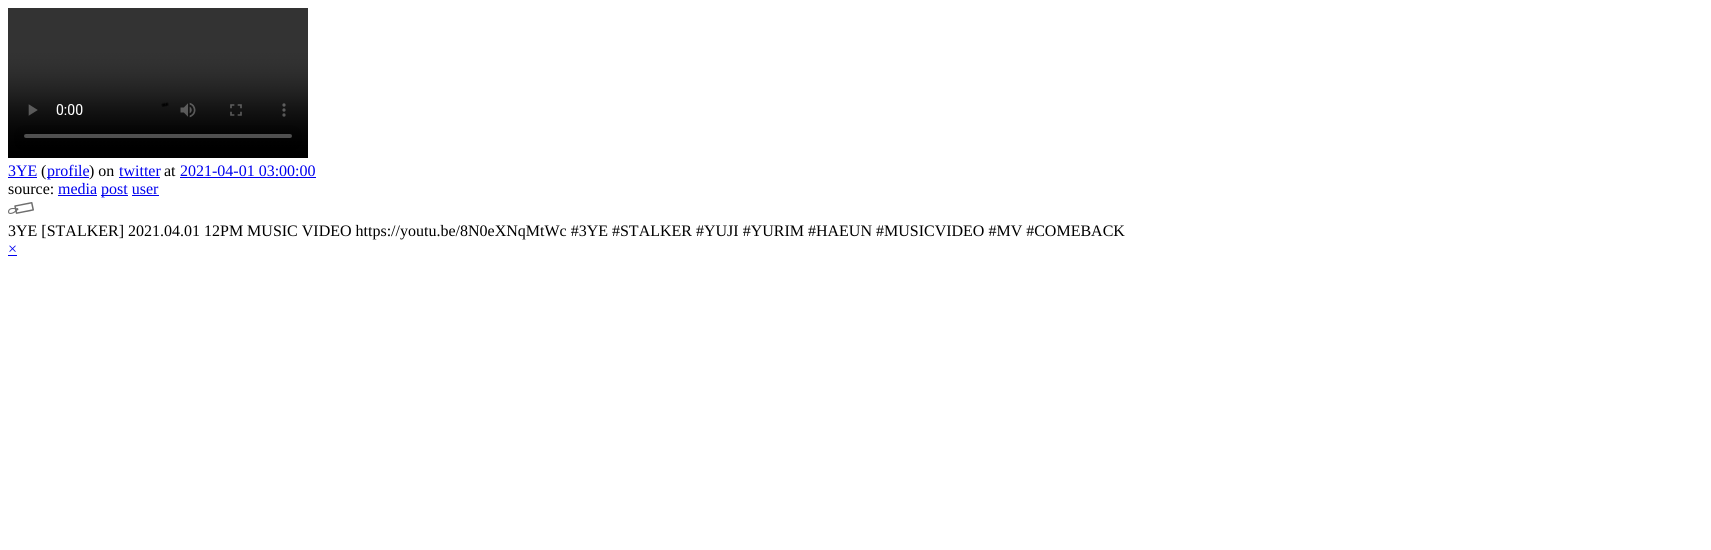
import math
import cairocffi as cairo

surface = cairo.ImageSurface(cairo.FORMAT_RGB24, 1711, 550)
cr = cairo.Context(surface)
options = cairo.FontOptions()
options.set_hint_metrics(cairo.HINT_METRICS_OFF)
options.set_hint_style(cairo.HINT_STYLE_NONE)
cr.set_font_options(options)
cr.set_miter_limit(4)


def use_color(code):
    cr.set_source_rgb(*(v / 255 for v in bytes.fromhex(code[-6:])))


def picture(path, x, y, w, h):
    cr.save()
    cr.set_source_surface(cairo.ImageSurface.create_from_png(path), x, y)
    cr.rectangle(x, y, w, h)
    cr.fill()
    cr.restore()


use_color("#ffffff")
cr.paint()
picture("img1.png", 8, 8, 300, 150)
cr.select_font_face("Liberation Serif")
cr.set_font_size(16)
use_color("#0000ee")
cr.move_to(8, 176)
cr.show_text("3YE")
cr.rectangle(8, 177, 29, 1)
cr.fill()
use_color("#000000")
cr.move_to(41, 176)
cr.show_text("(")
use_color("#0000ee")
cr.rectangle(47, 177, 42, 1)
cr.fill()
cr.move_to(47, 176)
cr.show_text("profile")
use_color("#000000")
cr.move_to(89, 176)
cr.show_text(") on")
use_color("#0000ee")
cr.move_to(119, 176)
cr.show_text("twitter")
cr.rectangle(119, 177, 41, 1)
cr.fill()
use_color("#000000")
cr.move_to(164, 176)
cr.show_text("at")
use_color("#0000ee")
cr.move_to(180, 176)
cr.show_text("2021-04-01 03:00:00")
cr.rectangle(180, 177, 136, 1)
cr.fill()
use_color("#000000")
cr.move_to(8, 194)
cr.show_text("source:")
use_color("#0000ee")
cr.move_to(58, 194)
cr.show_text("media")
cr.rectangle(58, 195, 39, 1)
cr.fill()
cr.rectangle(101, 195, 27, 1)
cr.fill()
cr.move_to(101, 194)
cr.show_text("post user")
cr.rectangle(132, 195, 27, 1)
cr.fill()
picture("img2.png", 8, 202, 26, 12)
use_color("#000000")
cr.move_to(8, 236)
cr.show_text("3YE [STALKER] 2021.04.01 12PM MUSIC VIDEO https://youtu.be/8N0eXNqMtWc #3YE #STALKER #YUJI #YURIM #HAEUN #MUSICVIDEO #MV #COMEBACK")
use_color("#0000ee")
cr.move_to(8, 254)
cr.show_text("×")
cr.rectangle(8, 255, 9, 1)
cr.fill()
surface.write_to_png("result.png")
